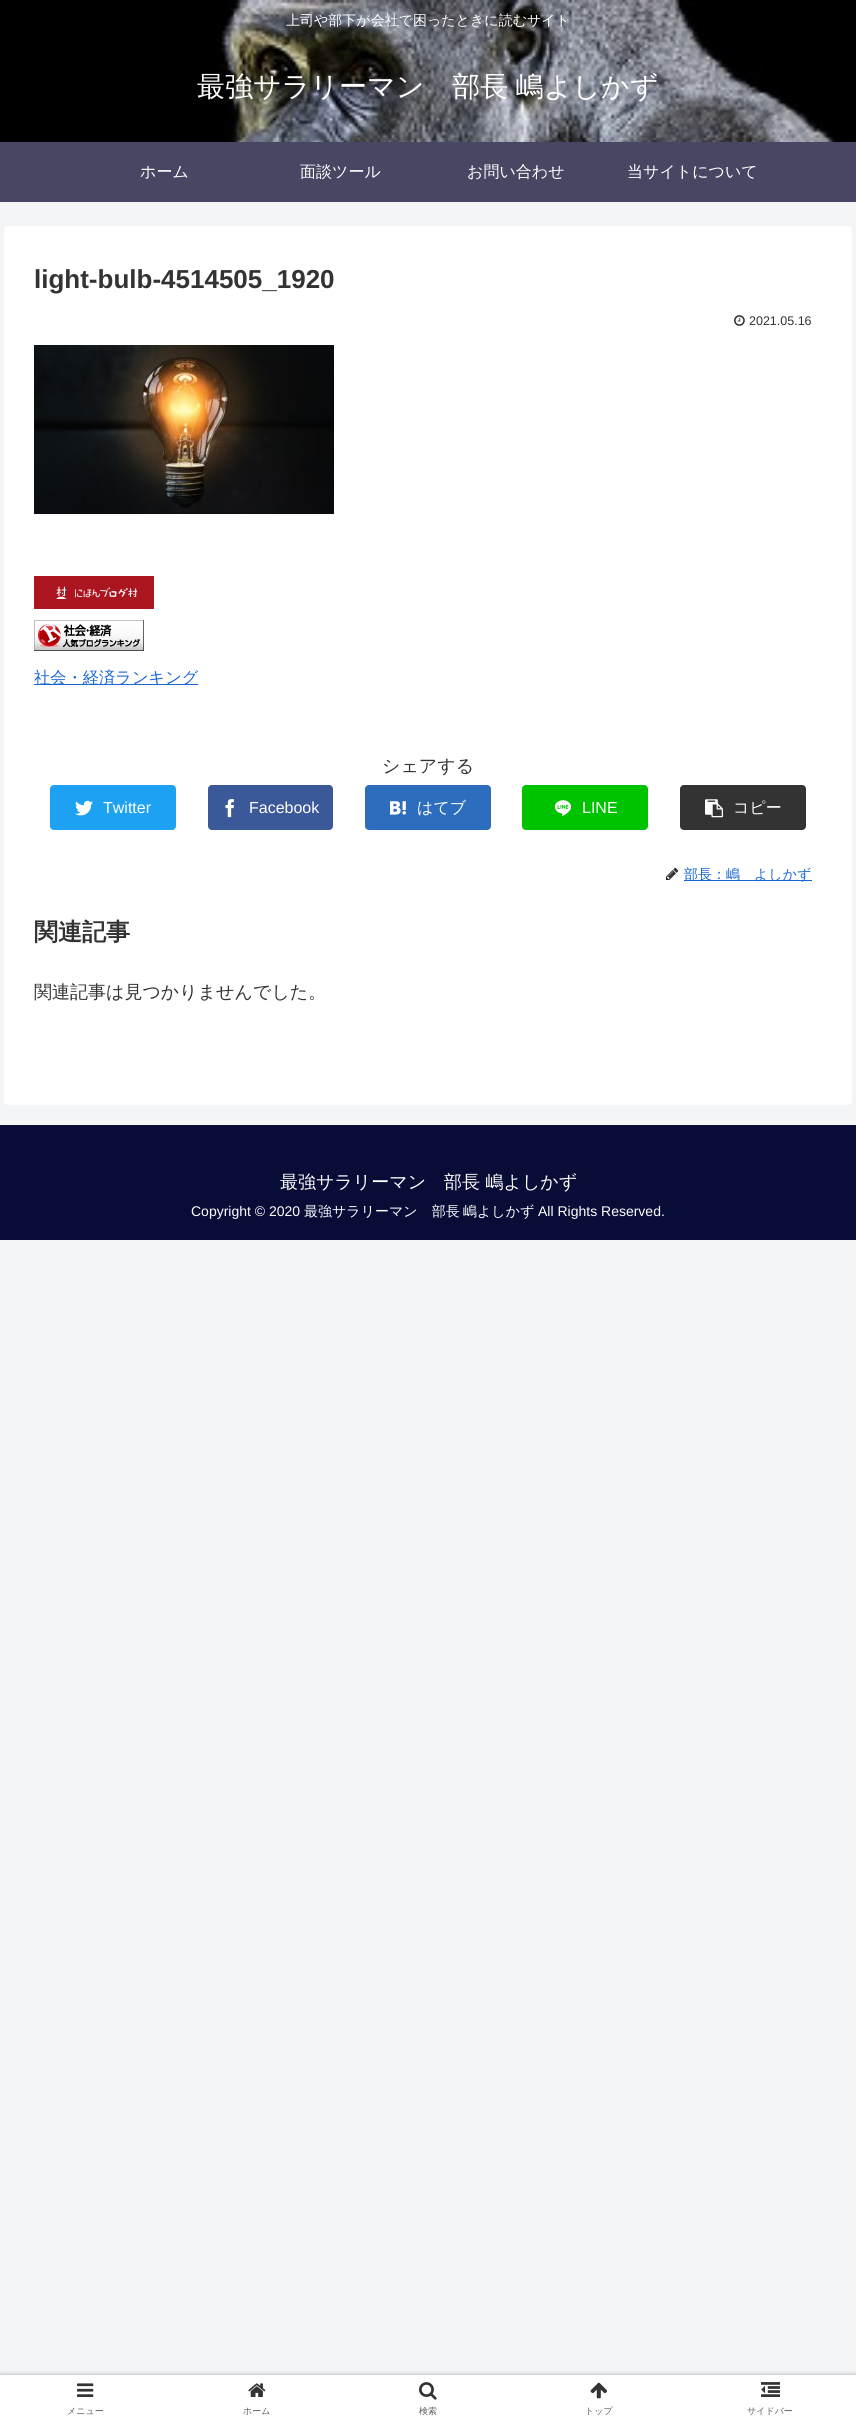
import math
import cairocffi as cairo

surface = cairo.ImageSurface(cairo.FORMAT_RGB24, 856, 2425)
cr = cairo.Context(surface)
options = cairo.FontOptions()
options.set_hint_metrics(cairo.HINT_METRICS_OFF)
options.set_hint_style(cairo.HINT_STYLE_NONE)
cr.set_font_options(options)
cr.set_miter_limit(4)


def use_color(code):
    cr.set_source_rgb(*(v / 255 for v in bytes.fromhex(code[-6:])))


def spaced_text(x, y, s, letter, word):
    cr.move_to(x, y)
    for ch in s:
        cr.show_text(ch)
        cr.rel_move_to(letter + word * (ch == ' '), 0)


def round_rect(x, y, w, h, r):
    cr.new_sub_path()
    for i, (u, v) in enumerate([(x + w - r, y + h - r), (x + r, y + h - r), (x + r, y + r), (x + w - r, y + r)]):
        cr.arc(u, v, r, i * math.pi / 2, (i + 1) * math.pi / 2)
    cr.close_path()


def shadow(x, y, w, h, r, blur, alpha):
    cr.push_group_with_content(cairo.CONTENT_ALPHA)
    cr.set_operator(cairo.OPERATOR_SOURCE)
    for i in range(15, -16, -2):
        e = blur * i / 6
        if min(w, h) + 2 * e > 0:
            cr.set_source_rgba(0, 0, 0, alpha * math.erfc((i - 1) / 8.5) / 2)
            round_rect(x - e, y - e, w + 2 * e, h + 2 * e, max(0, min(r + e + blur * .6, min(w, h) / 2 + e)))
            cr.fill()
    cr.mask(cr.pop_group())


def picture(path, x, y, w, h):
    cr.save()
    cr.set_source_surface(cairo.ImageSurface.create_from_png(path), x, y)
    cr.rectangle(x, y, w, h)
    cr.fill()
    cr.restore()


use_color("#f4f5f7")
cr.paint()
use_color("#474763")
cr.rectangle(0, 142, 856, 60)
cr.fill()
picture("img1.png", 0, 0, 856, 142)
cr.select_font_face("WenQuanYi Zen Hei Medium")
cr.set_font_size(14)
use_color("#ffffff")
cr.move_to(286, 25)
cr.show_text("上司や部下が会社で困ったときに読むサイト")
cr.set_font_size(28)
spaced_text(197, 96, "最強サラリーマン　部長 嶋よしかず", 0, -1)
cr.set_font_size(16)
cr.move_to(140, 177)
cr.show_text("ホーム")
cr.move_to(300, 177)
cr.show_text("面談ツール")
cr.move_to(467, 177)
cr.show_text("お問い合わせ")
cr.move_to(627, 177)
cr.show_text("当サイトについて")
round_rect(4, 226, 848, 879, 4)
cr.fill()
cr.select_font_face("Liberation Sans", cairo.FONT_SLANT_NORMAL, cairo.FONT_WEIGHT_BOLD)
cr.set_font_size(26)
use_color("#333333")
cr.move_to(34, 288)
cr.show_text("light-bulb-4514505_1920")
picture("img2.png", 734, 315, 11, 11)
cr.select_font_face("Liberation Sans")
cr.set_font_size(12.5)
cr.move_to(749, 325)
cr.show_text("2021.05.16")
picture("img3.png", 34, 345, 300, 169)
picture("img4.png", 34, 576, 120, 33)
picture("img5.png", 34, 620, 110, 31)
use_color("#1967d2")
cr.rectangle(34, 684, 164, 1)
cr.fill()
cr.select_font_face("WenQuanYi Zen Hei Medium")
cr.set_font_size(16.25)
cr.move_to(34, 683)
cr.show_text("社会・経済ランキング")
cr.set_font_size(18)
use_color("#333333")
cr.move_to(382, 772)
cr.show_text("シェアする")
use_color("#1da1f2")
round_rect(50, 785, 126, 45, 4)
cr.fill()
picture("img6.png", 75, 800, 18, 16)
cr.select_font_face("Liberation Sans")
cr.set_font_size(16)
use_color("#ffffff")
cr.move_to(103, 813)
cr.show_text("Twitter")
use_color("#3b5998")
round_rect(208, 785, 125, 45, 4)
cr.fill()
picture("img7.png", 225, 799, 9, 19)
use_color("#ffffff")
cr.move_to(249, 813)
cr.show_text("Facebook")
use_color("#2c6ebd")
round_rect(365, 785, 126, 45, 4)
cr.fill()
picture("img8.png", 390, 801, 16, 14)
cr.select_font_face("WenQuanYi Zen Hei Medium")
use_color("#ffffff")
cr.move_to(417, 813)
cr.show_text("はてブ")
use_color("#00c300")
round_rect(522, 785, 126, 45, 4)
cr.fill()
picture("img9.png", 554, 800, 18, 16)
cr.select_font_face("Liberation Sans")
use_color("#ffffff")
cr.move_to(582, 813)
cr.show_text("LINE")
use_color("#333333")
round_rect(680, 785, 126, 45, 4)
cr.fill()
picture("img10.png", 705, 799, 18, 19)
cr.select_font_face("WenQuanYi Zen Hei Medium")
use_color("#ffffff")
cr.move_to(733, 813)
cr.show_text("コピー")
picture("img11.png", 666, 867, 13, 13)
use_color("#1967d2")
cr.rectangle(684, 880, 128, 1)
cr.fill()
cr.set_font_size(14)
cr.move_to(684, 879)
cr.show_text("部長：嶋　よしかず")
cr.select_font_face("WenQuanYi Zen Hei", cairo.FONT_SLANT_NORMAL, cairo.FONT_WEIGHT_BOLD)
cr.set_font_size(24)
use_color("#333333")
cr.move_to(34, 940)
cr.show_text("関連記事")
cr.select_font_face("WenQuanYi Zen Hei Medium")
cr.set_font_size(18)
cr.move_to(34, 998)
cr.show_text("関連記事は見つかりませんでした。")
use_color("#080d38")
cr.rectangle(0, 1125, 856, 115)
cr.fill()
use_color("#ffffff")
cr.move_to(280, 1188)
cr.show_text("最強サラリーマン　部長 嶋よしかず")
cr.select_font_face("Liberation Sans")
cr.set_font_size(14)
cr.move_to(191, 1216)
cr.show_text("Copyright © 2020")
cr.select_font_face("WenQuanYi Zen Hei Medium")
cr.move_to(304, 1216)
cr.show_text("最強サラリーマン　部長")
cr.move_to(463, 1216)
cr.show_text("嶋よしかず")
cr.select_font_face("Liberation Sans")
cr.move_to(538, 1216)
cr.show_text("All Rights Reserved.")
use_color("#a9a9a9")
shadow(0, 2375, 856, 50, 0, 2.5, 1)
use_color("#ffffff")
cr.rectangle(0, 2375, 856, 50)
cr.fill()
picture("img12.png", 77, 2383, 17, 14)
cr.select_font_face("WenQuanYi Zen Hei Medium")
cr.set_font_size(9)
use_color("#5c5c5c")
cr.move_to(67, 2414)
cr.show_text("メニュー")
picture("img13.png", 248, 2383, 18, 14)
cr.move_to(243, 2414)
cr.show_text("ホーム")
picture("img14.png", 419, 2382, 18, 18)
cr.move_to(419, 2414)
cr.show_text("検索")
picture("img15.png", 590, 2382, 17, 17)
cr.move_to(585, 2414)
cr.show_text("トップ")
picture("img16.png", 761, 2382, 19, 15)
cr.move_to(747, 2414)
cr.show_text("サイドバー")
surface.write_to_png("result.png")
